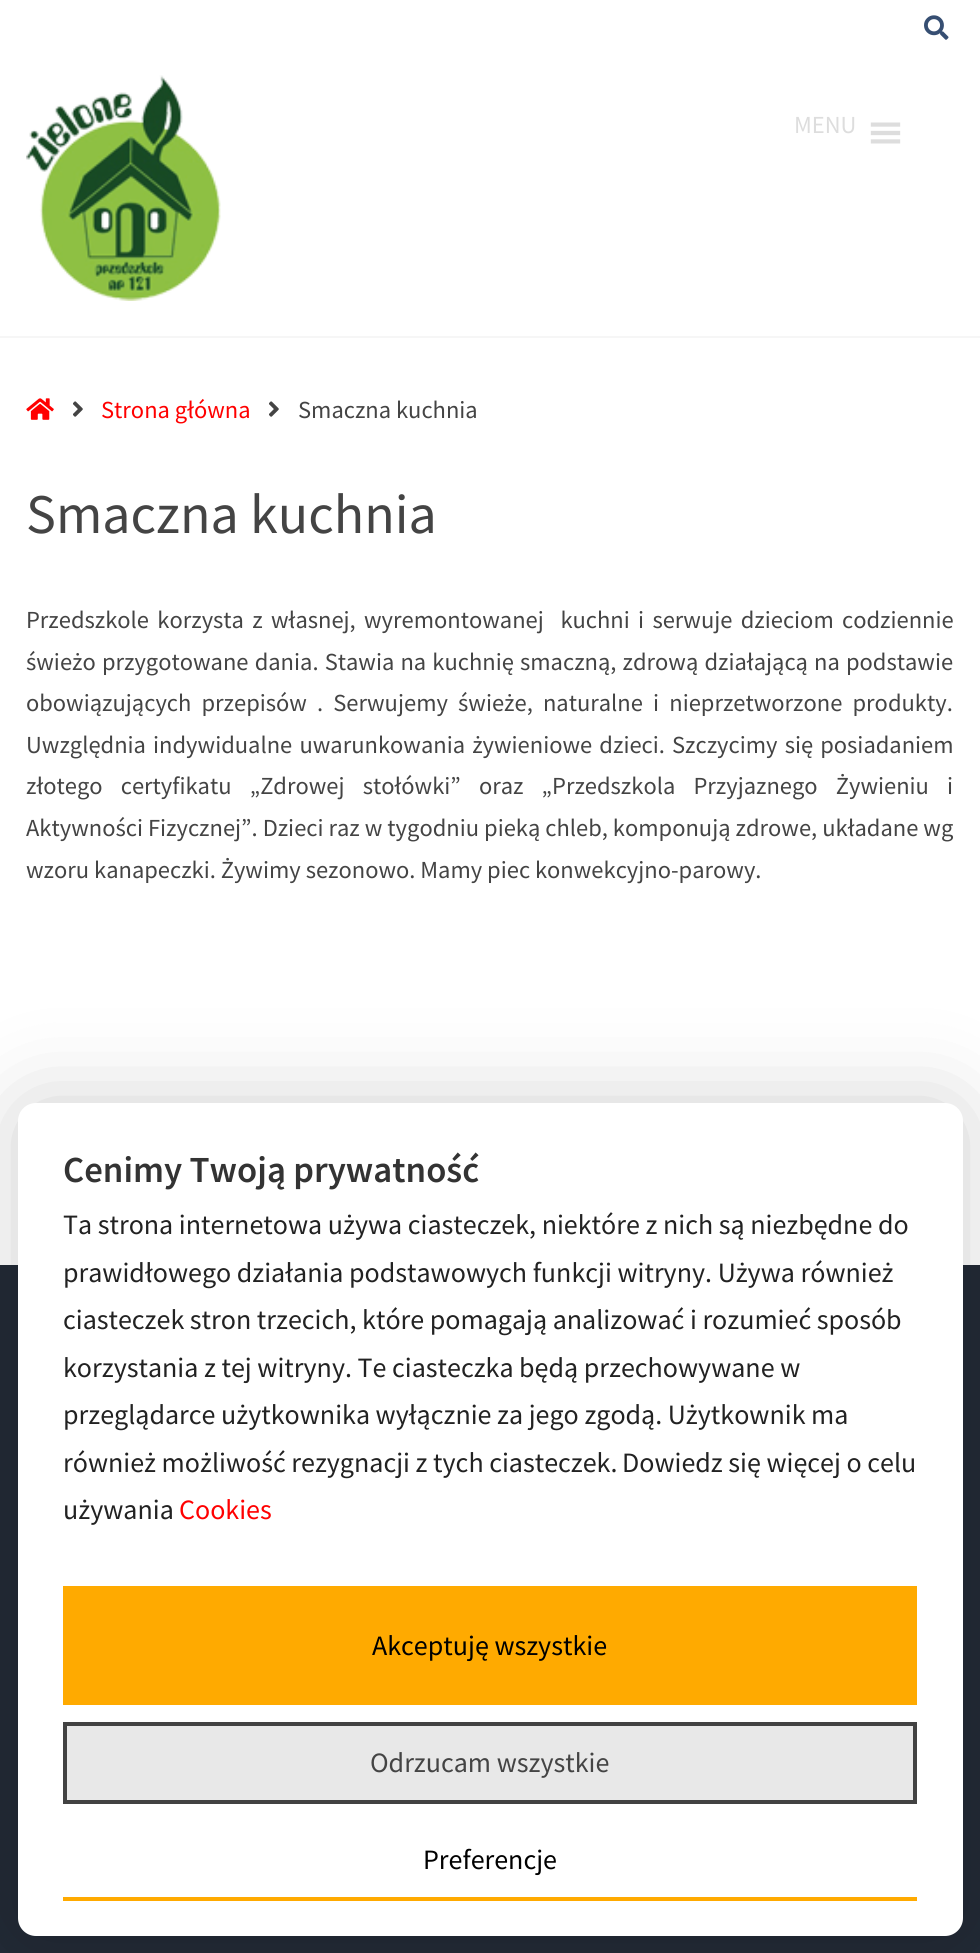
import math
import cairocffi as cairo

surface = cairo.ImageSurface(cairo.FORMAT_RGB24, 980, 1953)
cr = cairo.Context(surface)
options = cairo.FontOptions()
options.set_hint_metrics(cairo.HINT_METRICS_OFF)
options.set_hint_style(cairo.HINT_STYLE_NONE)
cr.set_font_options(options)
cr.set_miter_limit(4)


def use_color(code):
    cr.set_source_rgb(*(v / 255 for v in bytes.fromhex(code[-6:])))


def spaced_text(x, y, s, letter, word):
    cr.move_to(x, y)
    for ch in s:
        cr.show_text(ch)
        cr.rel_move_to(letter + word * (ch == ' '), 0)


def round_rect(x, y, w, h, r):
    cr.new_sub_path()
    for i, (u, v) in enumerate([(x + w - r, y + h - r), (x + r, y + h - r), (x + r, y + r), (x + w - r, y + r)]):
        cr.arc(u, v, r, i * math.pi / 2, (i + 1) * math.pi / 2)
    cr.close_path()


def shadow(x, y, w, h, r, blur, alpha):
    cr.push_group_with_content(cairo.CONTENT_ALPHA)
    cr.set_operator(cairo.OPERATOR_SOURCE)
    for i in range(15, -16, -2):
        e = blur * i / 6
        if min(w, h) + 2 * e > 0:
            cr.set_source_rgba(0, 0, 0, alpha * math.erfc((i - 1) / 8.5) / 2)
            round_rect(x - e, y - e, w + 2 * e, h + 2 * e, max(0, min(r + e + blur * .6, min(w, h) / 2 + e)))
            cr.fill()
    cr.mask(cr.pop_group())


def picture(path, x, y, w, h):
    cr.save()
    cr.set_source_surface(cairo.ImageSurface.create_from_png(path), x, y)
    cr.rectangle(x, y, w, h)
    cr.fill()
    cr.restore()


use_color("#ffffff")
cr.paint()
picture("img1.png", 924, 15, 25, 25)
picture("img2.png", 26, 75, 195, 226)
cr.select_font_face("Source Sans Pro")
cr.set_font_size(24.5)
use_color("#dddddd")
cr.move_to(794, 133)
cr.show_text("MENU")
picture("img3.png", 870, 122, 31, 22)
use_color("#f6f6f6")
cr.rectangle(0, 336, 980, 2)
cr.fill()
picture("img4.png", 26, 398, 28, 22)
picture("img5.png", 73, 401, 10, 16)
use_color("#ff0000")
cr.move_to(101, 418)
cr.show_text("Strona główna")
picture("img5.png", 269, 401, 10, 16)
use_color("#444444")
cr.move_to(298, 418)
cr.show_text("Smaczna kuchnia")
cr.set_font_size(56)
cr.move_to(26, 533)
cr.show_text("Smaczna kuchnia")
cr.set_font_size(24.5)
spaced_text(26, 628, "Przedszkole korzysta z własnej, wyremontowanej  kuchni i serwuje dzieciom codziennie", 0, 3.4)
spaced_text(26, 670, "świeżo przygotowane dania. Stawia na kuchnię smaczną, zdrową działającą na podstawie", 0, 1.25)
spaced_text(26, 711, "obowiązujących przepisów . Serwujemy świeże, naturalne i nieprzetworzone produkty.", 0, 5.25)
spaced_text(26, 753, "Uwzględnia indywidualne uwarunkowania żywieniowe dzieci. Szczycimy się posiadaniem", 0, 2.25)
spaced_text(26, 794, "złotego certyfikatu „Zdrowej stołówki” oraz „Przedszkola Przyjaznego Żywieniu i", 0, 13.25)
spaced_text(26, 836, "Aktywności Fizycznej”. Dzieci raz w tygodniu pieką chleb, komponują zdrowe, układane wg", 0, 0.1)
cr.move_to(26, 878)
cr.show_text("wzoru kanapeczki. Żywimy sezonowo. Mamy piec konwekcyjno-parowy.")
use_color("#222a36")
cr.rectangle(0, 1265, 980, 688)
cr.fill()
use_color("#000000")
shadow(18, 1103, 945, 833, 18, 44, 0.19)
use_color("#ffffff")
round_rect(18, 1103, 945, 833, 18)
cr.fill()
cr.select_font_face("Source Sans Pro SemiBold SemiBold")
cr.set_font_size(36.75)
use_color("#333333")
cr.move_to(63, 1182)
cr.show_text("Cenimy Twoją prywatność")
cr.select_font_face("Source Sans Pro")
cr.set_font_size(28)
use_color("#222222")
cr.move_to(63, 1234)
cr.show_text("Ta strona internetowa używa ciasteczek, niektóre z nich są niezbędne do")
cr.move_to(63, 1282)
cr.show_text("prawidłowego działania podstawowych funkcji witryny. Używa również")
cr.move_to(63, 1329)
cr.show_text("ciasteczek stron trzecich, które pomagają analizować i rozumieć sposób")
cr.move_to(63, 1377)
cr.show_text("korzystania z tej witryny. Te ciasteczka będą przechowywane w")
cr.move_to(63, 1424)
cr.show_text("przeglądarce użytkownika wyłącznie za jego zgodą. Użytkownik ma")
cr.move_to(63, 1472)
cr.show_text("również możliwość rezygnacji z tych ciasteczek.")
cr.move_to(622, 1472)
cr.show_text("Dowiedz się więcej o celu")
cr.move_to(63, 1519)
cr.show_text("używania")
use_color("#ff0000")
cr.move_to(179, 1519)
cr.show_text("Cookies")
use_color("#ffaa00")
cr.rectangle(63, 1586, 854, 119)
cr.fill()
use_color("#000000")
cr.move_to(372, 1655)
cr.show_text("Akceptuję wszystkie")
use_color("#e8e8e8")
cr.rectangle(65, 1724, 850, 78)
cr.fill_preserve()
use_color("#424242")
cr.set_line_width(4)
cr.stroke()
use_color("#444444")
cr.move_to(370, 1772)
cr.show_text("Odrzucam wszystkie")
use_color("#ffaa00")
cr.rectangle(63, 1897, 854, 4)
cr.fill()
use_color("#000000")
cr.move_to(423, 1869)
cr.show_text("Preferencje")
surface.write_to_png("result.png")
